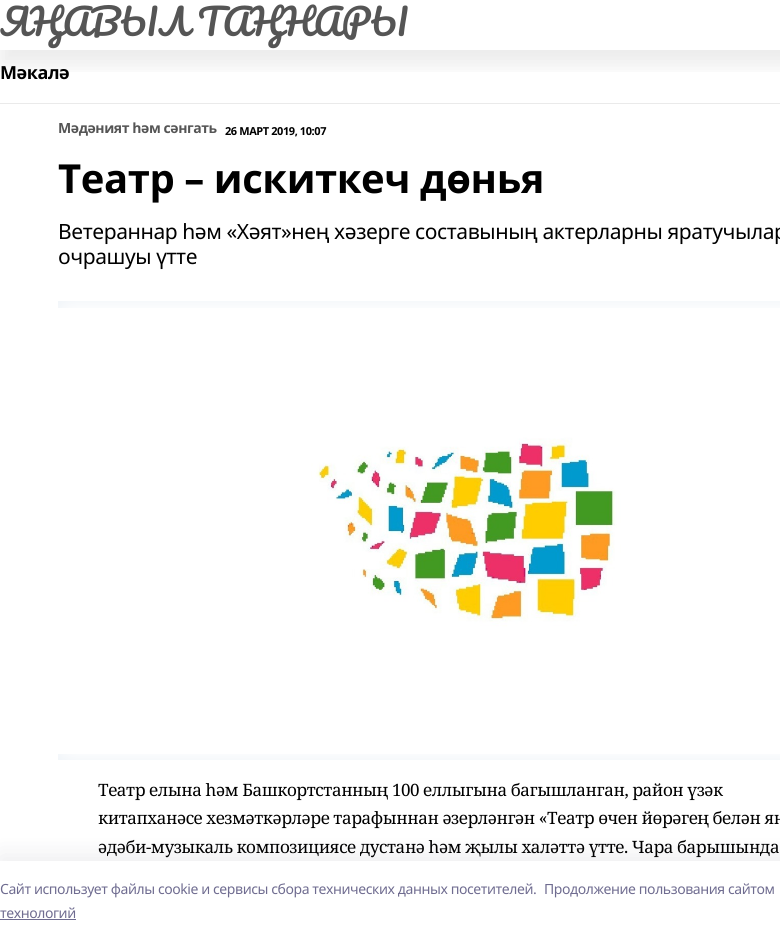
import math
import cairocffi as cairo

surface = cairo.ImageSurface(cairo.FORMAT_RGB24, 780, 941)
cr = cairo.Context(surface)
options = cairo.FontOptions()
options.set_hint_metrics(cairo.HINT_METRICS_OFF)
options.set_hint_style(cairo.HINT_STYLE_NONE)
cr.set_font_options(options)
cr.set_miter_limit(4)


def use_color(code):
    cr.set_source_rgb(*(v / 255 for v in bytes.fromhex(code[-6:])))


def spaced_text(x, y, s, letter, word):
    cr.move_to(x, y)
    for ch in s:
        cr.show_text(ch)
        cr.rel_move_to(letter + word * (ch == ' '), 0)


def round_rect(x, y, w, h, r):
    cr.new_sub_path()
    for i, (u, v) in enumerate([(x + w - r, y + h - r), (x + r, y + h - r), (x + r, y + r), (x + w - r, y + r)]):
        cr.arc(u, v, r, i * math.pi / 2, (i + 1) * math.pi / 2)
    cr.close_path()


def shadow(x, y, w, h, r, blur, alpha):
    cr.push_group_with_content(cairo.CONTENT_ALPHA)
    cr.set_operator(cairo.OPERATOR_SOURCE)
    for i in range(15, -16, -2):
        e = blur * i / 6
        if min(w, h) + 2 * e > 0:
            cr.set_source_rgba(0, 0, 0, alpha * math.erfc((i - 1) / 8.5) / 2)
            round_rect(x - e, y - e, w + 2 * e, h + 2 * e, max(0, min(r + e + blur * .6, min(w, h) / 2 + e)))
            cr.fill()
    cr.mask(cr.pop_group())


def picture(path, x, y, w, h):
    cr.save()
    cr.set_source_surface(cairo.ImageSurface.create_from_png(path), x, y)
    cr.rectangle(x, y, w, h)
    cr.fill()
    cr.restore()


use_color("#ffffff")
cr.paint()
cr.save()
cr.rectangle(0, 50, 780, 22)
cr.clip()
use_color("#000000")
shadow(0, 15, 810, 50, 0, 10, 0.08)
cr.restore()
cr.select_font_face("Pacifico")
cr.set_font_size(36)
use_color("#555555")
spaced_text(0, 36, "ЯҢАВЫЛ ТАҢНАРЫ", -0.42, 0)
use_color("#eaeaea")
cr.rectangle(0, 103, 780, 1)
cr.fill()
cr.select_font_face("Noto Sans", cairo.FONT_SLANT_NORMAL, cairo.FONT_WEIGHT_BOLD)
cr.set_font_size(18)
use_color("#000000")
spaced_text(0, 79, "Мәкалә", -0.42, 0)
cr.set_font_size(14)
use_color("#555555")
spaced_text(58, 133, "Мәдәният һәм сәнгать", -0.42, 0)
cr.set_font_size(11)
use_color("#000000")
spaced_text(225, 135, "26 МАРТ 2019, 10:07", -0.42, 0)
cr.set_font_size(40)
spaced_text(58, 193, "Театр – искиткеч дөнья", -0.42, 0)
cr.select_font_face("Noto Sans")
cr.set_font_size(21)
spaced_text(58, 239, "Ветераннар һәм «Хәят»нең хәзерге составының актерларны яратучылар", -0.42, 0)
spaced_text(58, 264, "очрашуы үтте", -0.42, 0)
use_color("#edf2f7")
cr.rectangle(58, 301, 722, 459)
cr.fill()
picture("img1.png", 58, 301, 722, 459)
picture("img2.png", 58, 308, 722, 446)
cr.select_font_face("Noto Serif")
cr.set_font_size(17)
use_color("#000000")
spaced_text(98, 796, "Театр елына һәм Башкортстанның 100 еллыгына багышланган, район үзәк", -0.42, 0)
spaced_text(98, 824, "китапханәсе хезмәткәрләре тарафыннан әзерләнгән «Театр өчен йөрәгең белән ян", -0.42, 0)
spaced_text(98, 853, "әдәби-музыкаль композициясе дустанә һәм җылы халәттә үтте. Чара барышында", -0.42, 0)
use_color("#14142b")
shadow(0, 855, 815, 80, 0, 11.5, 0.08)
use_color("#ffffff")
cr.rectangle(0, 861, 780, 80)
cr.fill()
cr.select_font_face("Noto Sans")
cr.set_font_size(14)
use_color("#6f6c90")
spaced_text(0, 894, "Cайт использует файлы cookie и сервисы сбора технических данных посетителей.", -0.42, 0)
spaced_text(544, 894, "Продолжение пользования сайтом", -0.42, 0)
spaced_text(0, 918, "технологий", -0.42, 0)
cr.rectangle(0, 919, 76, 1)
cr.fill()
surface.write_to_png("result.png")
